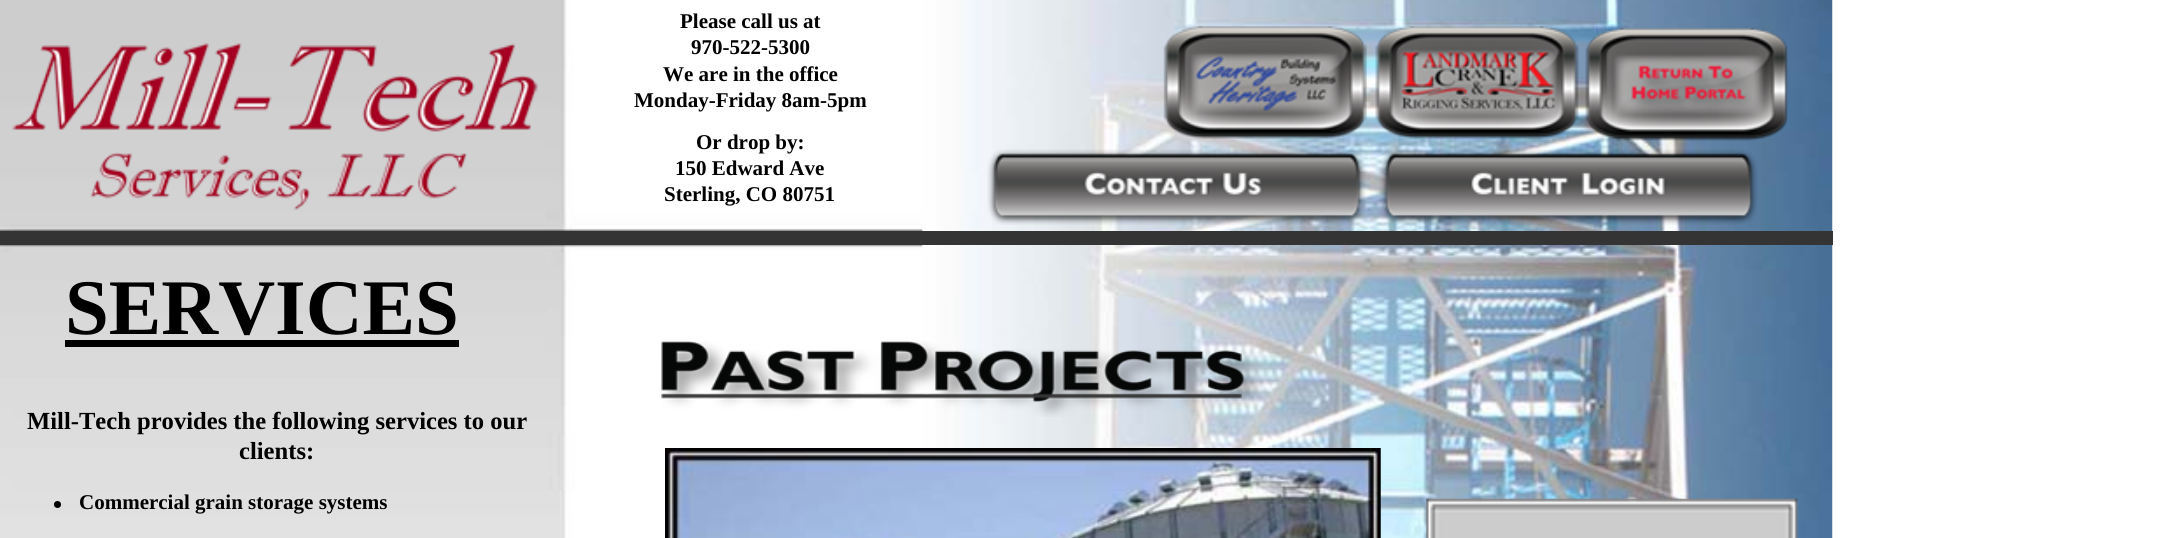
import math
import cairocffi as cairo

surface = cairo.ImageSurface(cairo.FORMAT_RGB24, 2173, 538)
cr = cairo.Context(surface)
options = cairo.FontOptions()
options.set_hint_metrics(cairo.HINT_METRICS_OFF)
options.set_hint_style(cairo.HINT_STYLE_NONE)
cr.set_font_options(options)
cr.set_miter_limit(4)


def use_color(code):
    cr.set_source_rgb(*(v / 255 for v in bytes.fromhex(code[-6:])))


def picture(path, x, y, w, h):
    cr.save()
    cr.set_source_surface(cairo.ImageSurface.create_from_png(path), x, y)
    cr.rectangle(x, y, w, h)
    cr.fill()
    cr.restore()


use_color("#ffffff")
cr.paint()
picture("img1.png", 0, 0, 923, 538)
cr.select_font_face("Liberation Serif", cairo.FONT_SLANT_NORMAL, cairo.FONT_WEIGHT_BOLD)
cr.set_font_size(21)
use_color("#000000")
cr.move_to(680, 28)
cr.show_text("Please call us at")
cr.move_to(691, 54)
cr.show_text("970-522-5300")
cr.move_to(663, 81)
cr.show_text("We are in the office")
cr.move_to(634, 107)
cr.show_text("Monday-Friday 8am-5pm")
picture("img2.png", 922, 0, 911, 538)
picture("img3.png", 12, 43, 526, 167)
cr.move_to(696, 149)
cr.show_text("Or drop by:")
cr.move_to(675, 175)
cr.show_text("150 Edward Ave")
cr.move_to(664, 201)
cr.show_text("Sterling, CO 80751")
picture("img4.png", 1163, 26, 204, 113)
picture("img5.png", 1375, 26, 204, 113)
picture("img6.png", 1585, 28, 203, 113)
picture("img7.png", 987, 149, 379, 76)
picture("img8.png", 1379, 149, 379, 76)
use_color("#333433")
cr.rectangle(0, 231, 1833, 14)
cr.fill()
cr.set_font_size(78.75)
use_color("#000000")
cr.move_to(65, 334)
cr.show_text("SERVICES")
cr.rectangle(65, 340, 394, 7)
cr.fill()
picture("img9.png", 661, 341, 602, 76)
cr.set_font_size(24.6)
cr.move_to(27, 429)
cr.show_text("Mill-Tech provides the following services to our")
cr.move_to(239, 459)
cr.show_text("clients:")
cr.new_path()
cr.arc(57.5, 504.5, 3.5, 0, 2 * math.pi)
cr.fill()
cr.set_font_size(21)
cr.move_to(79, 509)
cr.show_text("Commercial grain storage systems")
picture("img10.png", 665, 448, 716, 90)
picture("img11.png", 1426, 498, 372, 40)
surface.write_to_png("result.png")
